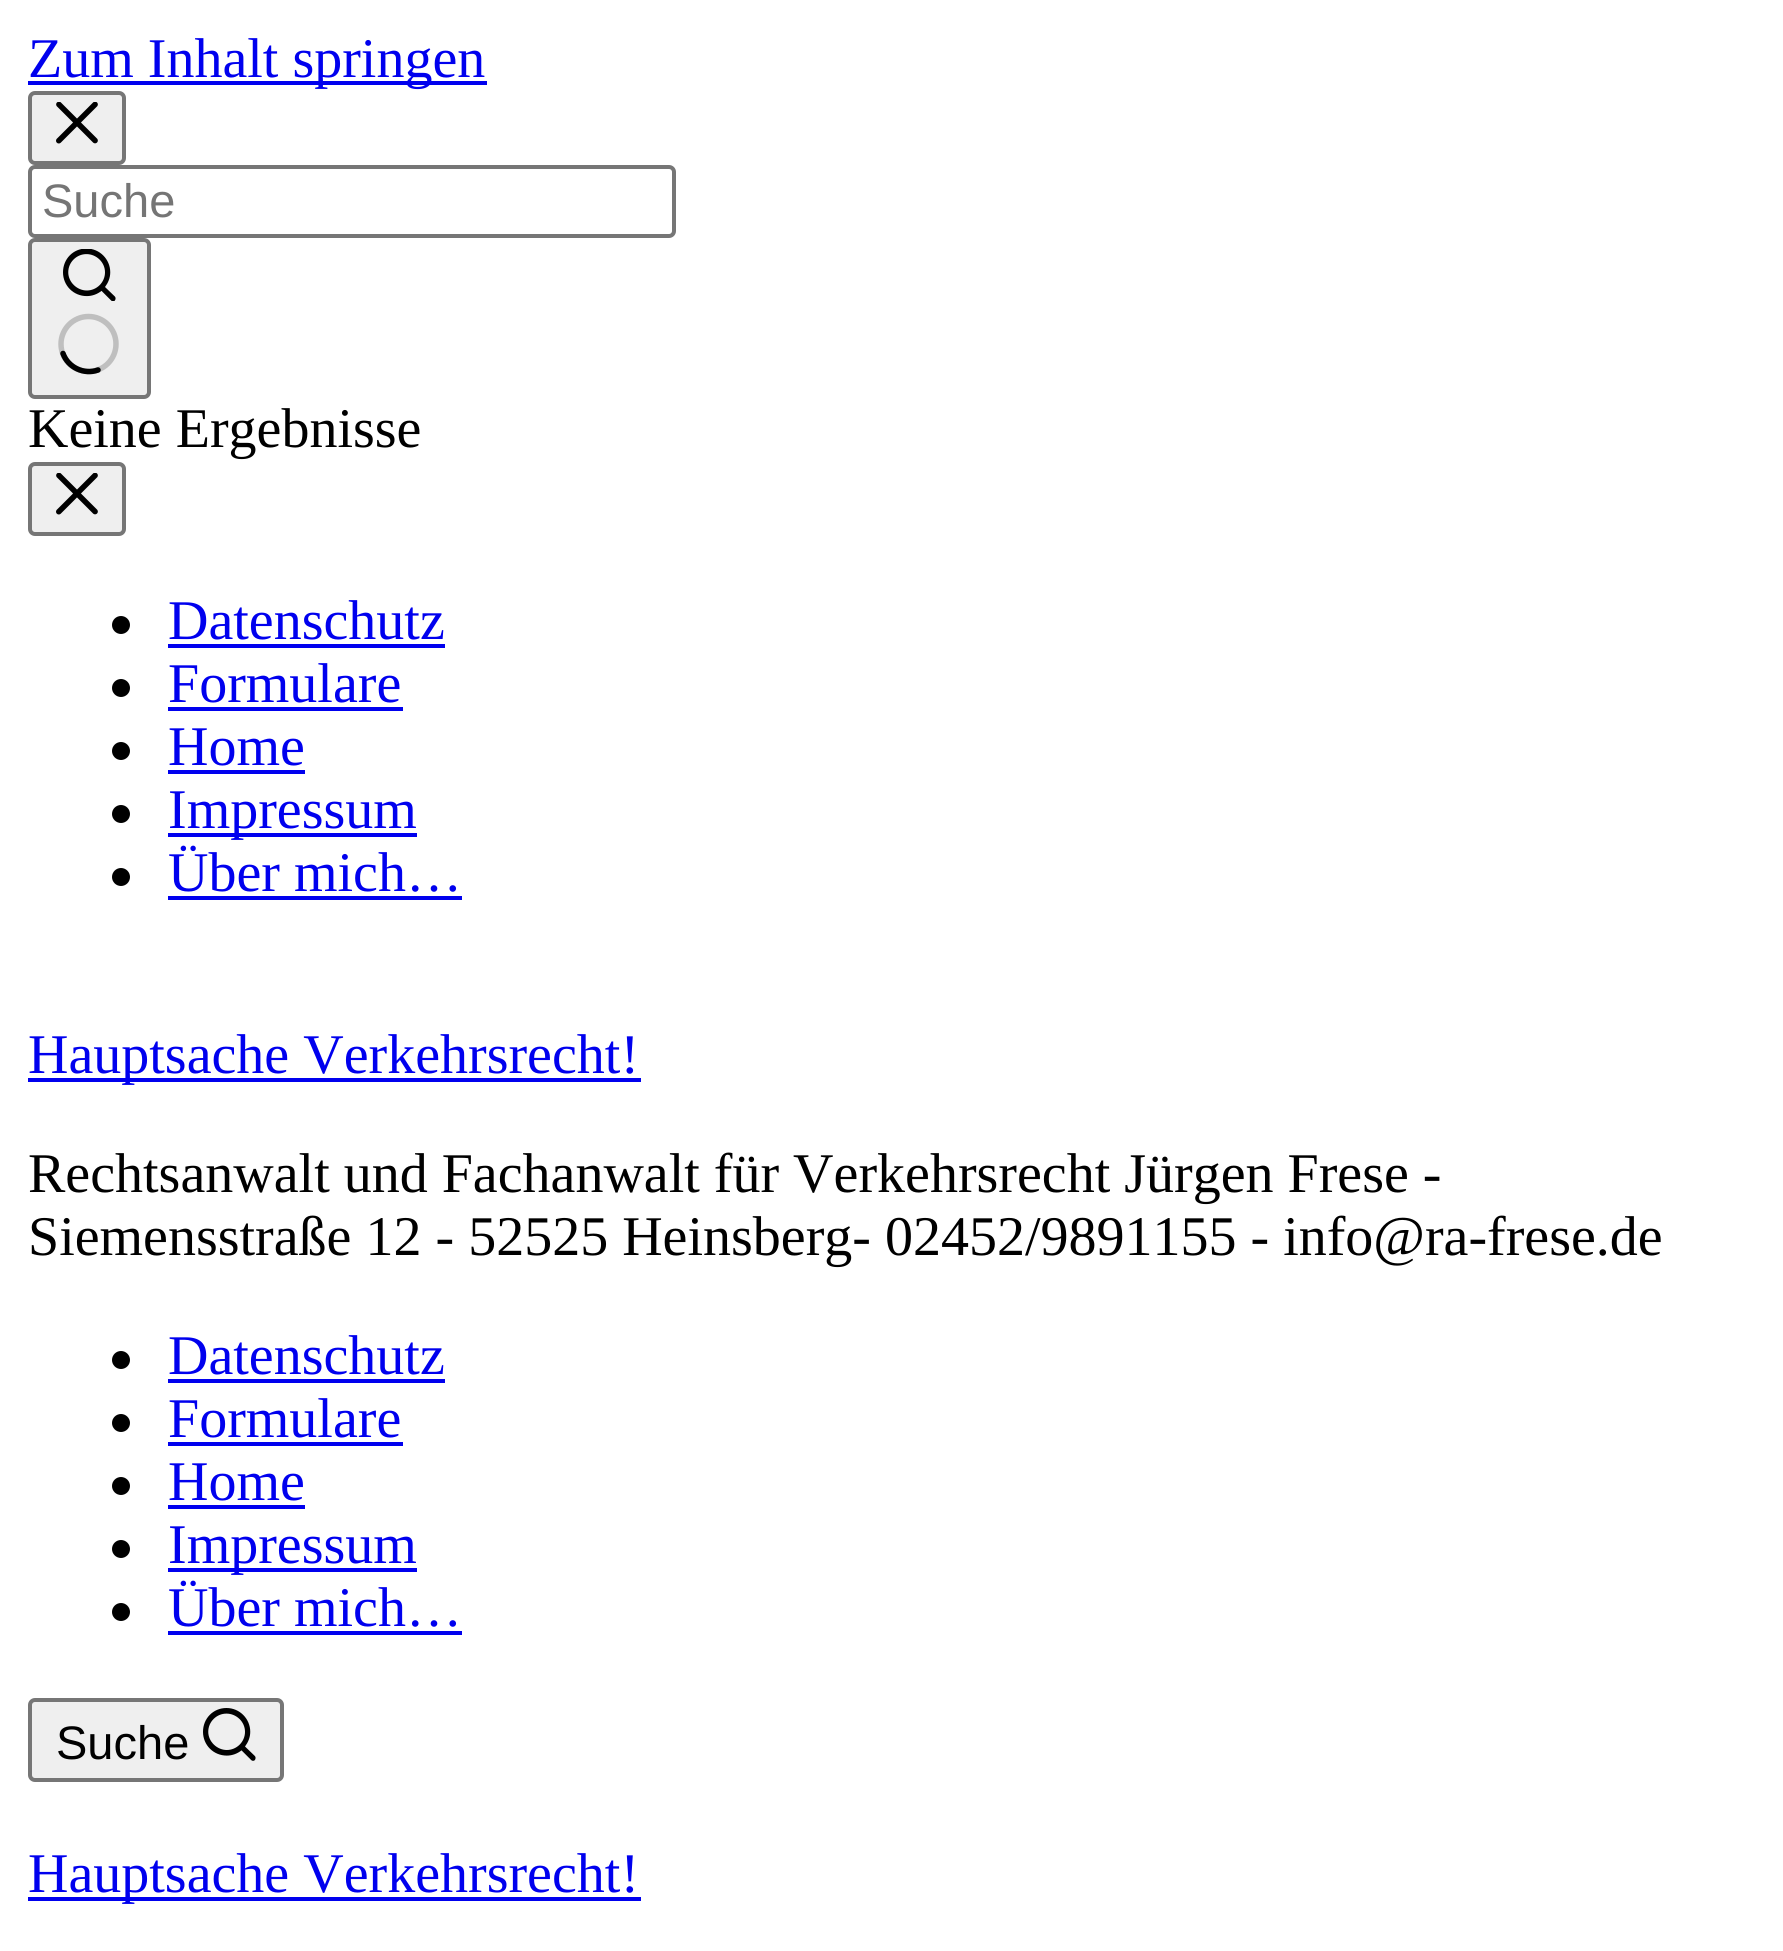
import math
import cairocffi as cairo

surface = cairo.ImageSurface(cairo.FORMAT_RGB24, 1783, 1951)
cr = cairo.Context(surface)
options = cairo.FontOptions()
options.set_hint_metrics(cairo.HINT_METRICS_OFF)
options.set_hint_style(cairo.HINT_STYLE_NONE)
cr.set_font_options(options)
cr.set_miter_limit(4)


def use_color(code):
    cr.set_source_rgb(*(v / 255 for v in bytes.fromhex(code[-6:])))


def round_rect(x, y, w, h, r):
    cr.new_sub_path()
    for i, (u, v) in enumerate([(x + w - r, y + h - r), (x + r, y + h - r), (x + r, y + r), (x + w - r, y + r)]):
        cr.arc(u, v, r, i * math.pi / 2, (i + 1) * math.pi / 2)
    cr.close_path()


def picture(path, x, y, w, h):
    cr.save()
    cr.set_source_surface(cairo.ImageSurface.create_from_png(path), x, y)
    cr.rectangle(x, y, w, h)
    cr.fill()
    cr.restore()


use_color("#ffffff")
cr.paint()
use_color("#0000ee")
cr.rectangle(28, 81, 459, 4)
cr.fill()
cr.select_font_face("Liberation Serif")
cr.set_font_size(56)
cr.move_to(28, 77)
cr.show_text("Zum Inhalt springen")
use_color("#efefef")
round_rect(30, 93, 94, 70, 5)
cr.fill_preserve()
use_color("#767676")
cr.set_line_width(4)
cr.stroke()
picture("img1.png", 56, 102, 42, 42)
round_rect(30, 167, 644, 69, 5)
cr.stroke()
cr.select_font_face("Liberation Sans")
cr.set_font_size(47)
use_color("#757575")
cr.move_to(42, 217)
cr.show_text("Suche")
use_color("#efefef")
round_rect(30, 240, 119, 157, 5)
cr.fill_preserve()
use_color("#767676")
cr.stroke()
picture("img2.png", 63, 249, 53, 52)
cr.arc(88.5, 344, 27.5, 0, 2 * math.pi)
use_color("#bfbfbf")
cr.set_line_width(5.5)
cr.stroke()
cr.new_path()
cr.move_to(98, 370)
cr.curve_to(84, 375, 68, 367.5, 63, 353.5)
use_color("#000000")
cr.set_line_cap(cairo.LINE_CAP_ROUND)
cr.stroke()
cr.select_font_face("Liberation Serif")
cr.set_font_size(56)
cr.move_to(28, 447)
cr.show_text("Keine Ergebnisse")
use_color("#efefef")
round_rect(30, 464, 94, 70, 5)
cr.fill_preserve()
use_color("#767676")
cr.set_line_width(4)
cr.set_line_cap(cairo.LINE_CAP_BUTT)
cr.stroke()
picture("img1.png", 56, 473, 42, 42)
use_color("#000000")
cr.arc(121, 625, 9, 0, 2 * math.pi)
cr.fill()
use_color("#0000ee")
cr.move_to(168, 639)
cr.show_text("Datenschutz")
cr.rectangle(168, 644, 277, 4)
cr.fill()
use_color("#000000")
cr.arc(121, 688, 9, 0, 2 * math.pi)
cr.fill()
use_color("#0000ee")
cr.move_to(168, 702)
cr.show_text("Formulare")
cr.rectangle(168, 707, 235, 4)
cr.fill()
use_color("#000000")
cr.arc(121, 751, 9, 0, 2 * math.pi)
cr.fill()
use_color("#0000ee")
cr.move_to(168, 765)
cr.show_text("Home")
cr.rectangle(168, 770, 137, 4)
cr.fill()
use_color("#000000")
cr.arc(121, 814, 9, 0, 2 * math.pi)
cr.fill()
use_color("#0000ee")
cr.rectangle(168, 833, 249, 4)
cr.fill()
cr.move_to(168, 828)
cr.show_text("Impressum")
use_color("#000000")
cr.new_path()
cr.arc(121, 877, 9, 0, 2 * math.pi)
cr.fill()
use_color("#0000ee")
cr.move_to(168, 891)
cr.show_text("Über mich…")
cr.rectangle(168, 896, 294, 4)
cr.fill()
cr.rectangle(28, 1078, 613, 4)
cr.fill()
cr.move_to(28, 1073)
cr.show_text("Hauptsache Verkehrsrecht!")
use_color("#000000")
cr.move_to(28, 1192)
cr.show_text("Rechtsanwalt und Fachanwalt für Verkehrsrecht Jürgen Frese -")
cr.move_to(28, 1255)
cr.show_text("Siemensstraße 12 - 52525 Heinsberg- 02452/9891155 - info@ra-frese.de")
cr.new_path()
cr.arc(121, 1360, 9, 0, 2 * math.pi)
cr.fill()
use_color("#0000ee")
cr.move_to(168, 1374)
cr.show_text("Datenschutz")
cr.rectangle(168, 1379, 277, 4)
cr.fill()
use_color("#000000")
cr.arc(121, 1423, 9, 0, 2 * math.pi)
cr.fill()
use_color("#0000ee")
cr.move_to(168, 1437)
cr.show_text("Formulare")
cr.rectangle(168, 1442, 235, 4)
cr.fill()
use_color("#000000")
cr.arc(121, 1486, 9, 0, 2 * math.pi)
cr.fill()
use_color("#0000ee")
cr.move_to(168, 1500)
cr.show_text("Home")
cr.rectangle(168, 1505, 137, 4)
cr.fill()
use_color("#000000")
cr.arc(121, 1549, 9, 0, 2 * math.pi)
cr.fill()
use_color("#0000ee")
cr.rectangle(168, 1568, 249, 4)
cr.fill()
cr.move_to(168, 1563)
cr.show_text("Impressum")
use_color("#000000")
cr.new_path()
cr.arc(121, 1612, 9, 0, 2 * math.pi)
cr.fill()
use_color("#0000ee")
cr.move_to(168, 1626)
cr.show_text("Über mich…")
cr.rectangle(168, 1631, 294, 4)
cr.fill()
use_color("#efefef")
round_rect(30, 1700, 252, 80, 5)
cr.fill_preserve()
use_color("#767676")
cr.stroke()
cr.select_font_face("Liberation Sans")
cr.set_font_size(47)
use_color("#000000")
cr.move_to(56, 1759)
cr.show_text("Suche")
picture("img3.png", 203, 1708, 53, 53)
use_color("#0000ee")
cr.rectangle(28, 1897, 613, 4)
cr.fill()
cr.select_font_face("Liberation Serif")
cr.set_font_size(56)
cr.move_to(28, 1892)
cr.show_text("Hauptsache Verkehrsrecht!")
surface.write_to_png("result.png")
